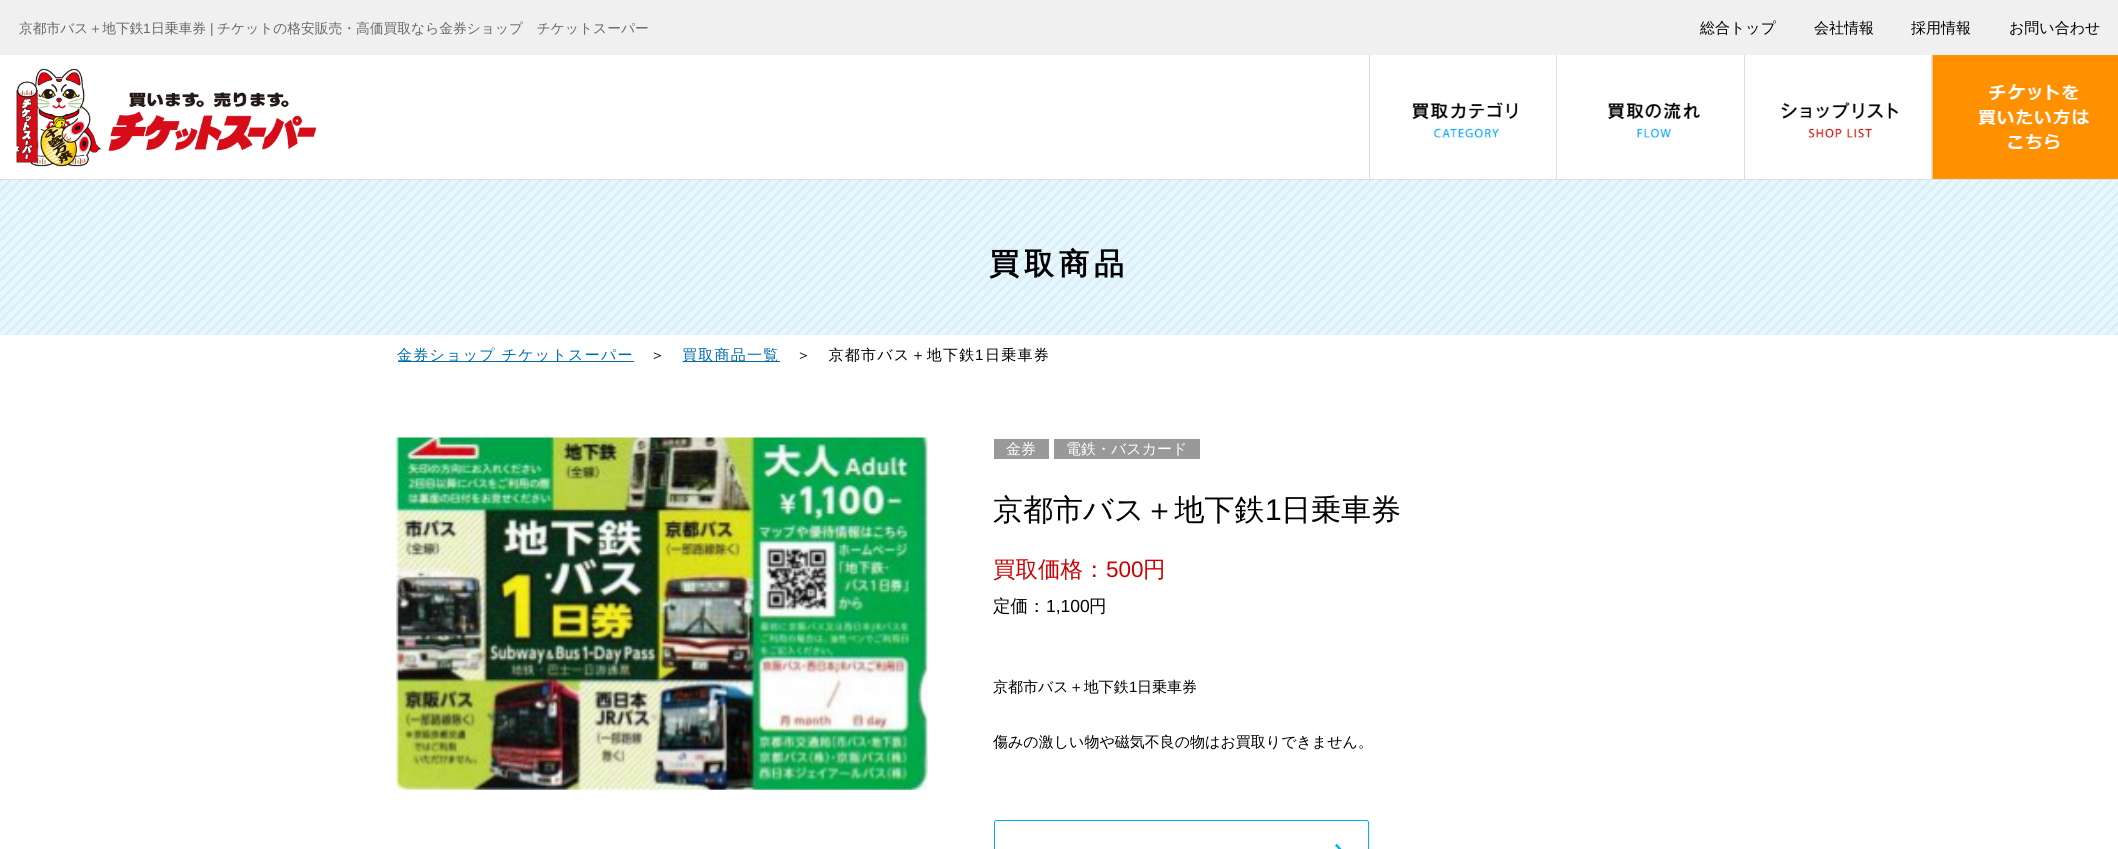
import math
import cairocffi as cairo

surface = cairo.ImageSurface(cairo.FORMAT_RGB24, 2118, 849)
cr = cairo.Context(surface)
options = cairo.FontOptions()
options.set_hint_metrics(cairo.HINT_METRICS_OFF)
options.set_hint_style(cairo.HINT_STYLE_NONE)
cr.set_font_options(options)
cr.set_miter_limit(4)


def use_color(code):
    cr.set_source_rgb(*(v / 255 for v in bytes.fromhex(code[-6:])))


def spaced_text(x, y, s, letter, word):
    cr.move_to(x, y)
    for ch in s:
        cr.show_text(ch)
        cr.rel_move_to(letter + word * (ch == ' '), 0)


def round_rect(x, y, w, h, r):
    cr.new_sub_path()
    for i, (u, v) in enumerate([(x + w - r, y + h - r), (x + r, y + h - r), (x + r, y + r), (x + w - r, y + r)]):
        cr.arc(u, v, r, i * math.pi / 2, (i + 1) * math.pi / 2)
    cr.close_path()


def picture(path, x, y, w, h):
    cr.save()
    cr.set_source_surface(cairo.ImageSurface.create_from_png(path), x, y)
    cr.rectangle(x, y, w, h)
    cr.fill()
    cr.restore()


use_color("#ffffff")
cr.paint()
use_color("#f0f0f0")
cr.rectangle(0, 0, 2118, 55)
cr.fill()
cr.select_font_face("WenQuanYi Zen Hei Medium")
cr.set_font_size(13.75)
use_color("#666666")
cr.move_to(19, 33)
cr.show_text("京都市バス＋地下鉄")
cr.select_font_face("Liberation Sans")
cr.move_to(143, 33)
cr.show_text("1")
cr.select_font_face("WenQuanYi Zen Hei Medium")
cr.move_to(151, 33)
cr.show_text("日乗車券")
cr.select_font_face("Liberation Sans")
cr.move_to(210, 33)
cr.show_text("|")
cr.select_font_face("WenQuanYi Zen Hei Medium")
cr.move_to(217, 33)
cr.show_text("チケットの格安販売・高価買取なら金券ショップ　チケットスーパー")
cr.set_font_size(15)
use_color("#000000")
cr.move_to(1700, 33)
cr.show_text("総合トップ")
cr.move_to(1814, 33)
cr.show_text("会社情報")
cr.move_to(1911, 33)
cr.show_text("採用情報")
cr.move_to(2009, 33)
cr.show_text("お問い合わせ")
use_color("#dedede")
cr.rectangle(0, 179, 2118, 1)
cr.fill()
picture("img1.png", 16, 68, 300, 99)
use_color("#dcdcdc")
cr.rectangle(1369, 55, 1, 124)
cr.fill()
cr.rectangle(1556, 55, 1, 124)
cr.fill()
picture("img2.png", 1412, 55, 145, 124)
picture("img3.png", 1607, 102, 93, 36)
cr.rectangle(1744, 55, 1, 124)
cr.fill()
cr.rectangle(1931, 55, 1, 124)
cr.fill()
picture("img4.png", 1781, 55, 151, 124)
picture("img5.png", 1932, 55, 186, 124)
picture("img6.png", 0, 180, 2118, 155)
cr.select_font_face("WenQuanYi Zen Hei", cairo.FONT_SLANT_NORMAL, cairo.FONT_WEIGHT_BOLD)
cr.set_font_size(30)
use_color("#000000")
spaced_text(989, 274, "買取商品", 5, 0)
use_color("#006aad")
cr.rectangle(398, 361, 236, 1)
cr.fill()
cr.select_font_face("WenQuanYi Zen Hei Medium")
cr.set_font_size(15)
spaced_text(397, 360, "金券ショップ チケットスーパー", 1.25, 0)
use_color("#000000")
spaced_text(650, 360, "＞", 1.25, 0)
use_color("#006aad")
cr.rectangle(683, 361, 97, 1)
cr.fill()
spaced_text(682, 360, "買取商品一覧", 1.25, 0)
use_color("#000000")
spaced_text(796, 360, "＞　京都市バス＋地下鉄", 1.25, 0)
cr.select_font_face("Liberation Sans")
spaced_text(975, 360, "1", 1.25, 0)
cr.select_font_face("WenQuanYi Zen Hei Medium")
spaced_text(985, 360, "日乗車券", 1.25, 0)
picture("img7.png", 396, 437, 532, 353)
use_color("#999999")
cr.rectangle(994, 439, 55, 20)
cr.fill()
use_color("#ffffff")
cr.move_to(1006, 454)
cr.show_text("金券")
use_color("#999999")
cr.rectangle(1054, 439, 146, 20)
cr.fill()
use_color("#ffffff")
cr.move_to(1066, 454)
cr.show_text("電鉄・バスカード")
cr.set_font_size(30)
use_color("#000000")
cr.move_to(993, 520)
cr.show_text("京都市バス＋地下鉄")
cr.select_font_face("Liberation Sans")
cr.move_to(1265, 520)
cr.show_text("1")
cr.select_font_face("WenQuanYi Zen Hei Medium")
cr.move_to(1281, 520)
cr.show_text("日乗車券")
cr.set_font_size(22.5)
use_color("#cc0000")
cr.move_to(993, 577)
cr.show_text("買取価格：")
cr.select_font_face("Liberation Sans")
cr.move_to(1106, 577)
cr.show_text("500")
cr.select_font_face("WenQuanYi Zen Hei Medium")
cr.move_to(1143, 577)
cr.show_text("円")
cr.set_font_size(17.5)
use_color("#000000")
cr.move_to(993, 612)
cr.show_text("定価：")
cr.select_font_face("Liberation Sans")
cr.move_to(1046, 612)
cr.show_text("1,100")
cr.select_font_face("WenQuanYi Zen Hei Medium")
cr.move_to(1089, 612)
cr.show_text("円")
cr.set_font_size(15)
cr.move_to(993, 692)
cr.show_text("京都市バス＋地下鉄")
cr.select_font_face("Liberation Sans")
cr.move_to(1129, 692)
cr.show_text("1")
cr.select_font_face("WenQuanYi Zen Hei Medium")
cr.move_to(1137, 692)
cr.show_text("日乗車券")
cr.move_to(993, 747)
cr.show_text("傷みの激しい物や磁気不良の物はお買取りできません。")
round_rect(994.5, 820.5, 374, 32, 2)
use_color("#00aeff")
cr.set_line_width(1)
cr.stroke()
picture("img8.png", 1335, 843, 7, 6)
surface.write_to_png("result.png")
